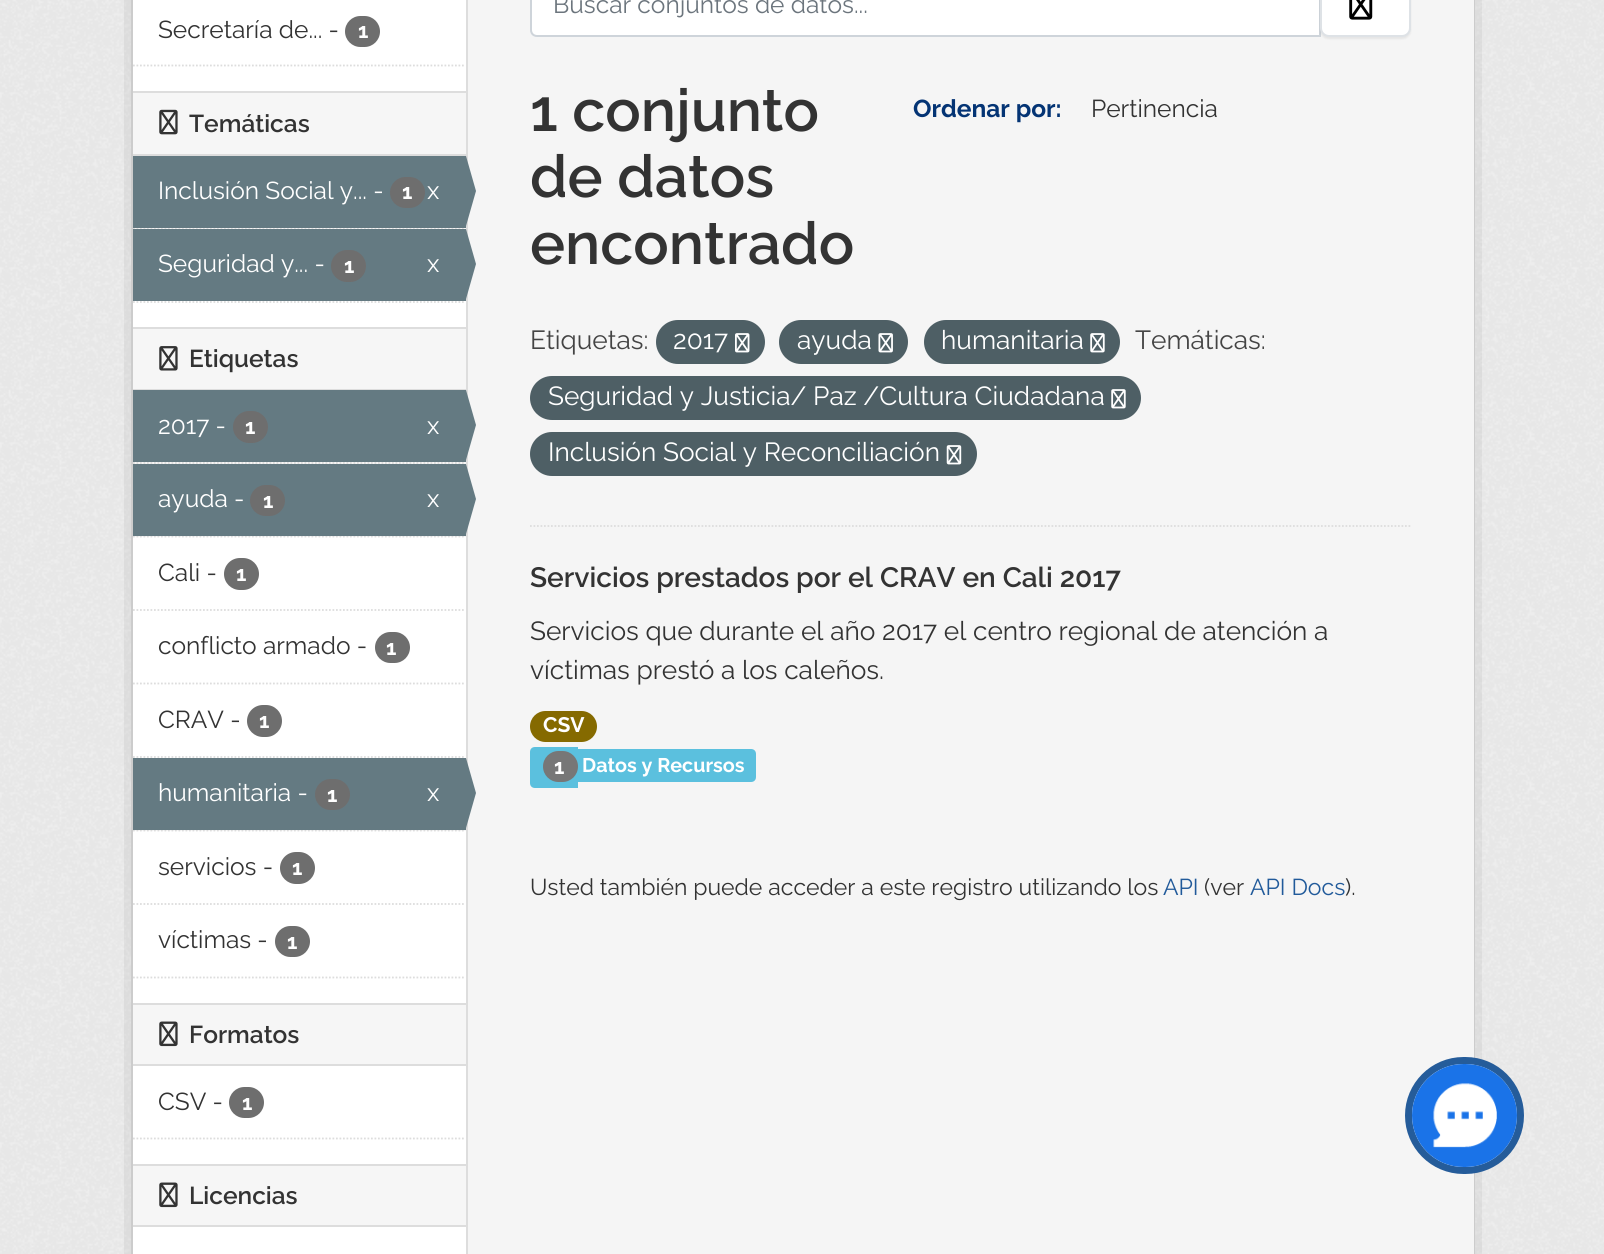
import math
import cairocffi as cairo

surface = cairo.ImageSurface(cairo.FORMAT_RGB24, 1604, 1254)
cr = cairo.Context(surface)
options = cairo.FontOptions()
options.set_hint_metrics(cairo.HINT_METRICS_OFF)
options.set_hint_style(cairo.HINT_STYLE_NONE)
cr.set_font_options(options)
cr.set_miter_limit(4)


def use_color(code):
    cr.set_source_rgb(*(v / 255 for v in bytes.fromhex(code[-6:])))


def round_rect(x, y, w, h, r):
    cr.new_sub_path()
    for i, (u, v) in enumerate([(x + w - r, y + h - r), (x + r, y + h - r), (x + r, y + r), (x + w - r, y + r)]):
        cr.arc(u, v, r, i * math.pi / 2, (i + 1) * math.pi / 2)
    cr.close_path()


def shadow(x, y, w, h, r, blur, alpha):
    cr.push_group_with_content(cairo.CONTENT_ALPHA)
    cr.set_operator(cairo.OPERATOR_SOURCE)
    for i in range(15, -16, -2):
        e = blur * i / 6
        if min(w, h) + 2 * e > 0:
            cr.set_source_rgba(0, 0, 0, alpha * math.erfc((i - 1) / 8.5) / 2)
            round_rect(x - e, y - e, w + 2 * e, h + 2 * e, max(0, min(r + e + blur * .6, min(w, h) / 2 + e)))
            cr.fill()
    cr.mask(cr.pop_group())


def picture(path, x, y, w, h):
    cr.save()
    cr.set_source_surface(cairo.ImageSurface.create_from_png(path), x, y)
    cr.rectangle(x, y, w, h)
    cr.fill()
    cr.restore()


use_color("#eeeeee")
cr.paint()
picture("img1.png", 0, 0, 1604, 1254)
cr.rectangle(127.5, -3.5, 1351, 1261)
cr.set_source_rgba(0, 0, 0, 0.05)
cr.set_line_width(7)
cr.stroke()
use_color("#ffffff")
cr.rectangle(133, 0, 333, 1254)
cr.fill()
cr.rectangle(132, -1, 1342, 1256)
use_color("#cccccc")
cr.set_line_width(2)
cr.stroke()
cr.select_font_face("Raleway")
cr.set_font_size(24.5)
use_color("#333333")
cr.move_to(158, 38)
cr.show_text("Secretaría de... -")
use_color("#6e6e6e")
round_rect(345, 16, 35, 31, 15.5)
cr.fill()
cr.select_font_face("Raleway", cairo.FONT_SLANT_NORMAL, cairo.FONT_WEIGHT_BOLD)
cr.set_font_size(21)
use_color("#ffffff")
cr.move_to(358, 38)
cr.show_text("1")
cr.new_path()
cr.move_to(133, 65.5)
cr.line_to(465.5, 65.5)
use_color("#dddddd")
cr.set_line_width(1.8)
cr.set_dash([1.75, 1.75])
cr.stroke()
use_color("#f6f6f6")
cr.rectangle(133, 93, 333, 61)
cr.fill()
use_color("#dddddd")
cr.rectangle(133, 91, 333, 2)
cr.fill()
cr.rectangle(133, 154, 333, 2)
cr.fill()
picture("img2.png", 159, 109, 19, 26)
cr.select_font_face("Raleway SemiBold")
cr.set_font_size(24.5)
use_color("#333333")
cr.move_to(189, 132)
cr.show_text("Temáticas")
use_color("#f6f6f6")
cr.rectangle(134, 228, 332, 1)
cr.fill()
cr.new_path()
cr.move_to(133, 228.5)
cr.line_to(465.5, 228.5)
use_color("#dddddd")
cr.stroke()
use_color("#647a82")
cr.rectangle(133, 156, 333, 72)
cr.fill()
cr.select_font_face("Raleway")
use_color("#ffffff")
cr.move_to(158, 199)
cr.show_text("Inclusión Social y... -")
use_color("#6e6e6e")
round_rect(390, 177, 35, 31, 15.5)
cr.fill()
cr.select_font_face("Raleway", cairo.FONT_SLANT_NORMAL, cairo.FONT_WEIGHT_BOLD)
cr.set_font_size(21)
use_color("#ffffff")
cr.move_to(402, 199)
cr.show_text("1")
cr.select_font_face("Raleway")
cr.set_font_size(24.5)
cr.move_to(427, 199)
cr.show_text("x")
use_color("#dddddd")
cr.rectangle(466, 0, 2, 1254)
cr.fill()
use_color("#f5f5f5")
cr.rectangle(468, 0, 1006, 1254)
cr.fill()
use_color("#647a82")
cr.new_path()
cr.move_to(466, 226)
cr.line_to(466, 156)
cr.line_to(476, 191)
cr.close_path()
cr.fill()
cr.rectangle(133, 229, 333, 72)
cr.fill()
use_color("#ffffff")
cr.move_to(158, 272)
cr.show_text("Seguridad y... -")
use_color("#6e6e6e")
round_rect(331, 250, 35, 32, 16)
cr.fill()
cr.select_font_face("Raleway", cairo.FONT_SLANT_NORMAL, cairo.FONT_WEIGHT_BOLD)
cr.set_font_size(21)
use_color("#ffffff")
cr.move_to(344, 273)
cr.show_text("1")
cr.select_font_face("Raleway")
cr.set_font_size(24.5)
cr.move_to(427, 272)
cr.show_text("x")
use_color("#647a82")
cr.new_path()
cr.move_to(466, 299)
cr.line_to(466, 229)
cr.line_to(476, 264)
cr.close_path()
cr.fill()
cr.new_path()
cr.move_to(133, 302)
cr.line_to(465.5, 302)
use_color("#dddddd")
cr.stroke()
use_color("#f6f6f6")
cr.rectangle(133, 329, 333, 60)
cr.fill()
use_color("#dddddd")
cr.rectangle(133, 327, 333, 2)
cr.fill()
cr.rectangle(133, 389, 333, 1)
cr.fill()
picture("img3.png", 159, 346, 19, 25)
cr.select_font_face("Raleway SemiBold")
use_color("#333333")
cr.move_to(189, 367)
cr.show_text("Etiquetas")
use_color("#f6f6f6")
cr.rectangle(133, 462, 333, 2)
cr.fill()
cr.new_path()
cr.move_to(133, 463)
cr.line_to(465.5, 463)
use_color("#dddddd")
cr.stroke()
use_color("#647a82")
cr.rectangle(133, 390, 333, 72)
cr.fill()
cr.select_font_face("Raleway")
use_color("#ffffff")
cr.move_to(158, 434)
cr.show_text("2017 -")
use_color("#6e6e6e")
round_rect(233, 411, 35, 32, 16)
cr.fill()
cr.select_font_face("Raleway", cairo.FONT_SLANT_NORMAL, cairo.FONT_WEIGHT_BOLD)
cr.set_font_size(21)
use_color("#ffffff")
cr.move_to(245, 434)
cr.show_text("1")
cr.select_font_face("Raleway")
cr.set_font_size(24.5)
cr.move_to(427, 434)
cr.show_text("x")
use_color("#647a82")
cr.new_path()
cr.move_to(466, 460)
cr.line_to(466, 390)
cr.line_to(476, 425)
cr.close_path()
cr.fill()
use_color("#f6f6f6")
cr.rectangle(134, 536, 332, 1)
cr.fill()
cr.new_path()
cr.move_to(133, 536.5)
cr.line_to(465.5, 536.5)
use_color("#dddddd")
cr.stroke()
use_color("#647a82")
cr.rectangle(133, 464, 333, 72)
cr.fill()
use_color("#ffffff")
cr.move_to(158, 507)
cr.show_text("ayuda -")
use_color("#6e6e6e")
round_rect(250, 485, 35, 31, 15.5)
cr.fill()
cr.select_font_face("Raleway", cairo.FONT_SLANT_NORMAL, cairo.FONT_WEIGHT_BOLD)
cr.set_font_size(21)
use_color("#ffffff")
cr.move_to(263, 508)
cr.show_text("1")
cr.select_font_face("Raleway")
cr.set_font_size(24.5)
cr.move_to(427, 507)
cr.show_text("x")
use_color("#647a82")
cr.new_path()
cr.move_to(466, 534)
cr.line_to(466, 464)
cr.line_to(476, 499)
cr.close_path()
cr.fill()
cr.new_path()
cr.move_to(133, 610)
cr.line_to(465.5, 610)
use_color("#dddddd")
cr.stroke()
use_color("#333333")
cr.move_to(158, 581)
cr.show_text("Cali -")
use_color("#6e6e6e")
round_rect(224, 558, 35, 32, 16)
cr.fill()
cr.select_font_face("Raleway", cairo.FONT_SLANT_NORMAL, cairo.FONT_WEIGHT_BOLD)
cr.set_font_size(21)
use_color("#ffffff")
cr.move_to(236, 581)
cr.show_text("1")
cr.new_path()
cr.move_to(133, 683.5)
cr.line_to(465.5, 683.5)
use_color("#dddddd")
cr.stroke()
cr.select_font_face("Raleway")
cr.set_font_size(24.5)
use_color("#333333")
cr.move_to(158, 654)
cr.show_text("conflicto armado -")
use_color("#6e6e6e")
round_rect(375, 632, 35, 31, 15.5)
cr.fill()
cr.select_font_face("Raleway", cairo.FONT_SLANT_NORMAL, cairo.FONT_WEIGHT_BOLD)
cr.set_font_size(21)
use_color("#ffffff")
cr.move_to(386, 655)
cr.show_text("1")
cr.new_path()
cr.move_to(133, 757)
cr.line_to(465.5, 757)
use_color("#dddddd")
cr.stroke()
cr.select_font_face("Raleway")
cr.set_font_size(24.5)
use_color("#333333")
cr.move_to(158, 728)
cr.show_text("CRAV -")
use_color("#6e6e6e")
round_rect(247, 705, 35, 32, 16)
cr.fill()
cr.select_font_face("Raleway", cairo.FONT_SLANT_NORMAL, cairo.FONT_WEIGHT_BOLD)
cr.set_font_size(21)
use_color("#ffffff")
cr.move_to(259, 728)
cr.show_text("1")
use_color("#f6f6f6")
cr.rectangle(134, 830, 332, 1)
cr.fill()
cr.new_path()
cr.move_to(133, 830.5)
cr.line_to(465.5, 830.5)
use_color("#dddddd")
cr.stroke()
use_color("#647a82")
cr.rectangle(133, 758, 333, 72)
cr.fill()
cr.select_font_face("Raleway")
cr.set_font_size(24.5)
use_color("#ffffff")
cr.move_to(158, 801)
cr.show_text("humanitaria -")
use_color("#6e6e6e")
round_rect(315, 779, 35, 31, 15.5)
cr.fill()
cr.select_font_face("Raleway", cairo.FONT_SLANT_NORMAL, cairo.FONT_WEIGHT_BOLD)
cr.set_font_size(21)
use_color("#ffffff")
cr.move_to(327, 802)
cr.show_text("1")
cr.select_font_face("Raleway")
cr.set_font_size(24.5)
cr.move_to(427, 801)
cr.show_text("x")
use_color("#647a82")
cr.new_path()
cr.move_to(466, 828)
cr.line_to(466, 758)
cr.line_to(476, 793)
cr.close_path()
cr.fill()
cr.new_path()
cr.move_to(133, 904)
cr.line_to(465.5, 904)
use_color("#dddddd")
cr.stroke()
use_color("#333333")
cr.move_to(158, 875)
cr.show_text("servicios -")
use_color("#6e6e6e")
round_rect(280, 852, 35, 32, 16)
cr.fill()
cr.select_font_face("Raleway", cairo.FONT_SLANT_NORMAL, cairo.FONT_WEIGHT_BOLD)
cr.set_font_size(21)
use_color("#ffffff")
cr.move_to(292, 875)
cr.show_text("1")
cr.select_font_face("Raleway")
cr.set_font_size(24.5)
use_color("#333333")
cr.move_to(158, 948)
cr.show_text("víctimas -")
use_color("#6e6e6e")
round_rect(275, 926, 35, 31, 15.5)
cr.fill()
cr.select_font_face("Raleway", cairo.FONT_SLANT_NORMAL, cairo.FONT_WEIGHT_BOLD)
cr.set_font_size(21)
use_color("#ffffff")
cr.move_to(287, 949)
cr.show_text("1")
cr.new_path()
cr.move_to(133, 977.5)
cr.line_to(465.5, 977.5)
use_color("#dddddd")
cr.stroke()
use_color("#f6f6f6")
cr.rectangle(133, 1005, 333, 59)
cr.fill()
use_color("#dddddd")
cr.rectangle(133, 1003, 333, 2)
cr.fill()
cr.rectangle(133, 1064, 333, 2)
cr.fill()
picture("img4.png", 159, 1021, 19, 26)
cr.select_font_face("Raleway SemiBold")
cr.set_font_size(24.5)
use_color("#333333")
cr.move_to(189, 1043)
cr.show_text("Formatos")
cr.select_font_face("Raleway")
cr.move_to(158, 1110)
cr.show_text("CSV -")
use_color("#6e6e6e")
round_rect(229, 1087, 35, 31, 15.5)
cr.fill()
cr.select_font_face("Raleway", cairo.FONT_SLANT_NORMAL, cairo.FONT_WEIGHT_BOLD)
cr.set_font_size(21)
use_color("#ffffff")
cr.move_to(242, 1110)
cr.show_text("1")
cr.new_path()
cr.move_to(133, 1138.5)
cr.line_to(465.5, 1138.5)
use_color("#dddddd")
cr.stroke()
use_color("#f6f6f6")
cr.rectangle(133, 1166, 333, 59)
cr.fill()
use_color("#dddddd")
cr.rectangle(133, 1164, 333, 2)
cr.fill()
cr.rectangle(133, 1225, 333, 2)
cr.fill()
picture("img4.png", 159, 1182, 19, 26)
cr.select_font_face("Raleway SemiBold")
cr.set_font_size(24.5)
use_color("#333333")
cr.move_to(189, 1204)
cr.show_text("Licencias")
cr.new_path()
cr.move_to(530, 526)
cr.line_to(1410.5, 526)
use_color("#dddddd")
cr.stroke()
use_color("#ffffff")
cr.new_path()
cr.move_to(537, -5)
cr.line_to(1320, -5)
cr.line_to(1320, 35)
cr.line_to(537, 35)
cr.curve_to(534, 35, 532, 33, 532, 30)
cr.line_to(532, 0)
cr.curve_to(532, -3, 534, -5, 537, -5)
cr.close_path()
cr.fill()
cr.new_path()
cr.move_to(537, -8)
cr.line_to(1320, -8)
cr.line_to(1320, 36)
cr.line_to(537, 36)
cr.curve_to(533.5, 36, 531, 33.5, 531, 30)
cr.line_to(531, -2)
cr.curve_to(531, -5.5, 533.5, -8, 537, -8)
cr.close_path()
use_color("#ced4da")
cr.set_line_width(2)
cr.set_dash([])
cr.stroke()
cr.select_font_face("Raleway")
use_color("#6c757d")
cr.move_to(553, 13)
cr.show_text("Buscar conjuntos de datos...")
use_color("#000000")
shadow(1320, -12, 91, 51, 9, 1, 0.07)
use_color("#ffffff")
round_rect(1321, -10, 89, 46, 8)
cr.fill_preserve()
use_color("#dee2e6")
cr.stroke()
picture("img5.png", 1349, 0, 24, 20)
cr.select_font_face("Raleway SemiBold")
cr.set_font_size(59)
use_color("#333333")
cr.move_to(530, 131)
cr.show_text("1 conjunto")
cr.move_to(530, 197)
cr.show_text("de datos")
cr.move_to(530, 264)
cr.show_text("encontrado")
cr.select_font_face("Raleway", cairo.FONT_SLANT_NORMAL, cairo.FONT_WEIGHT_BOLD)
cr.set_font_size(24.5)
use_color("#043474")
cr.move_to(913, 117)
cr.show_text("Ordenar por:")
cr.select_font_face("Raleway")
use_color("#333333")
cr.move_to(1091, 117)
cr.show_text("Pertinencia")
cr.set_font_size(26.25)
use_color("#444444")
cr.move_to(530, 349)
cr.show_text("Etiquetas:")
use_color("#4e5f65")
round_rect(656, 320, 109, 44, 22)
cr.fill()
use_color("#ffffff")
cr.move_to(673, 349)
cr.show_text("2017")
picture("img6.png", 735, 333, 15, 20)
use_color("#4e5f65")
round_rect(779, 320, 129, 44, 22)
cr.fill()
use_color("#ffffff")
cr.move_to(797, 349)
cr.show_text("ayuda")
picture("img7.png", 878, 333, 15, 20)
use_color("#4e5f65")
round_rect(924, 320, 196, 44, 22)
cr.fill()
use_color("#ffffff")
cr.move_to(941, 349)
cr.show_text("humanitaria")
picture("img8.png", 1090, 333, 15, 20)
use_color("#444444")
cr.move_to(1135, 349)
cr.show_text("Temáticas:")
use_color("#4e5f65")
round_rect(530, 376, 611, 44, 22)
cr.fill()
use_color("#ffffff")
cr.move_to(548, 405)
cr.show_text("Seguridad y Justicia/ Paz /Cultura Ciudadana")
picture("img8.png", 1111, 389, 15, 20)
use_color("#4e5f65")
round_rect(530, 432, 447, 44, 22)
cr.fill()
use_color("#ffffff")
cr.move_to(548, 461)
cr.show_text("Inclusión Social y Reconciliación")
picture("img9.png", 946, 445, 16, 20)
cr.select_font_face("Raleway SemiBold")
cr.set_font_size(28)
use_color("#333333")
cr.move_to(530, 587)
cr.show_text("Servicios prestados por el CRAV en Cali 2017")
cr.select_font_face("Raleway")
cr.set_font_size(26.25)
cr.move_to(530, 640)
cr.show_text("Servicios que durante el año 2017 el centro regional de atención a")
cr.move_to(530, 679)
cr.show_text("víctimas prestó a los caleños.")
use_color("#856a00")
round_rect(530, 711, 67, 31, 15.5)
cr.fill()
cr.select_font_face("Raleway", cairo.FONT_SLANT_NORMAL, cairo.FONT_WEIGHT_BOLD)
cr.set_font_size(21)
use_color("#ffffff")
cr.move_to(543, 732)
cr.show_text("CSV")
use_color("#5bc0de")
cr.new_path()
cr.move_to(535, 747)
cr.line_to(578, 747)
cr.line_to(578, 788)
cr.line_to(535, 788)
cr.curve_to(532, 788, 530, 786, 530, 783)
cr.line_to(530, 752)
cr.curve_to(530, 749, 532, 747, 535, 747)
cr.close_path()
cr.fill()
cr.new_path()
cr.move_to(578, 749)
cr.line_to(751, 749)
cr.curve_to(754, 749, 756, 751, 756, 754)
cr.line_to(756, 777)
cr.curve_to(756, 780, 754, 782, 751, 782)
cr.line_to(578, 782)
cr.close_path()
cr.fill()
use_color("#777777")
round_rect(543, 751, 35, 31, 15.5)
cr.fill()
use_color("#ffffff")
cr.move_to(554, 774)
cr.show_text("1")
cr.set_font_size(19.75)
cr.move_to(582, 772)
cr.show_text("Datos y Recursos")
cr.select_font_face("Raleway")
cr.set_font_size(23)
use_color("#333333")
cr.move_to(530, 895)
cr.show_text("Usted también puede acceder a este registro utilizando los")
use_color("#215a9a")
cr.move_to(1163, 895)
cr.show_text("API")
use_color("#333333")
cr.move_to(1204, 895)
cr.show_text("(ver")
use_color("#215a9a")
cr.move_to(1250, 895)
cr.show_text("API Docs")
use_color("#333333")
cr.move_to(1345, 895)
cr.show_text(").")
round_rect(1408.5, 1060.5, 112, 110, 55)
use_color("#255c9a")
cr.set_line_width(7)
cr.stroke()
use_color("#1a73e8")
round_rect(1412, 1064, 105, 103, 51.5)
cr.fill()
picture("img10.png", 1433, 1083, 64, 65)
surface.write_to_png("result.png")
